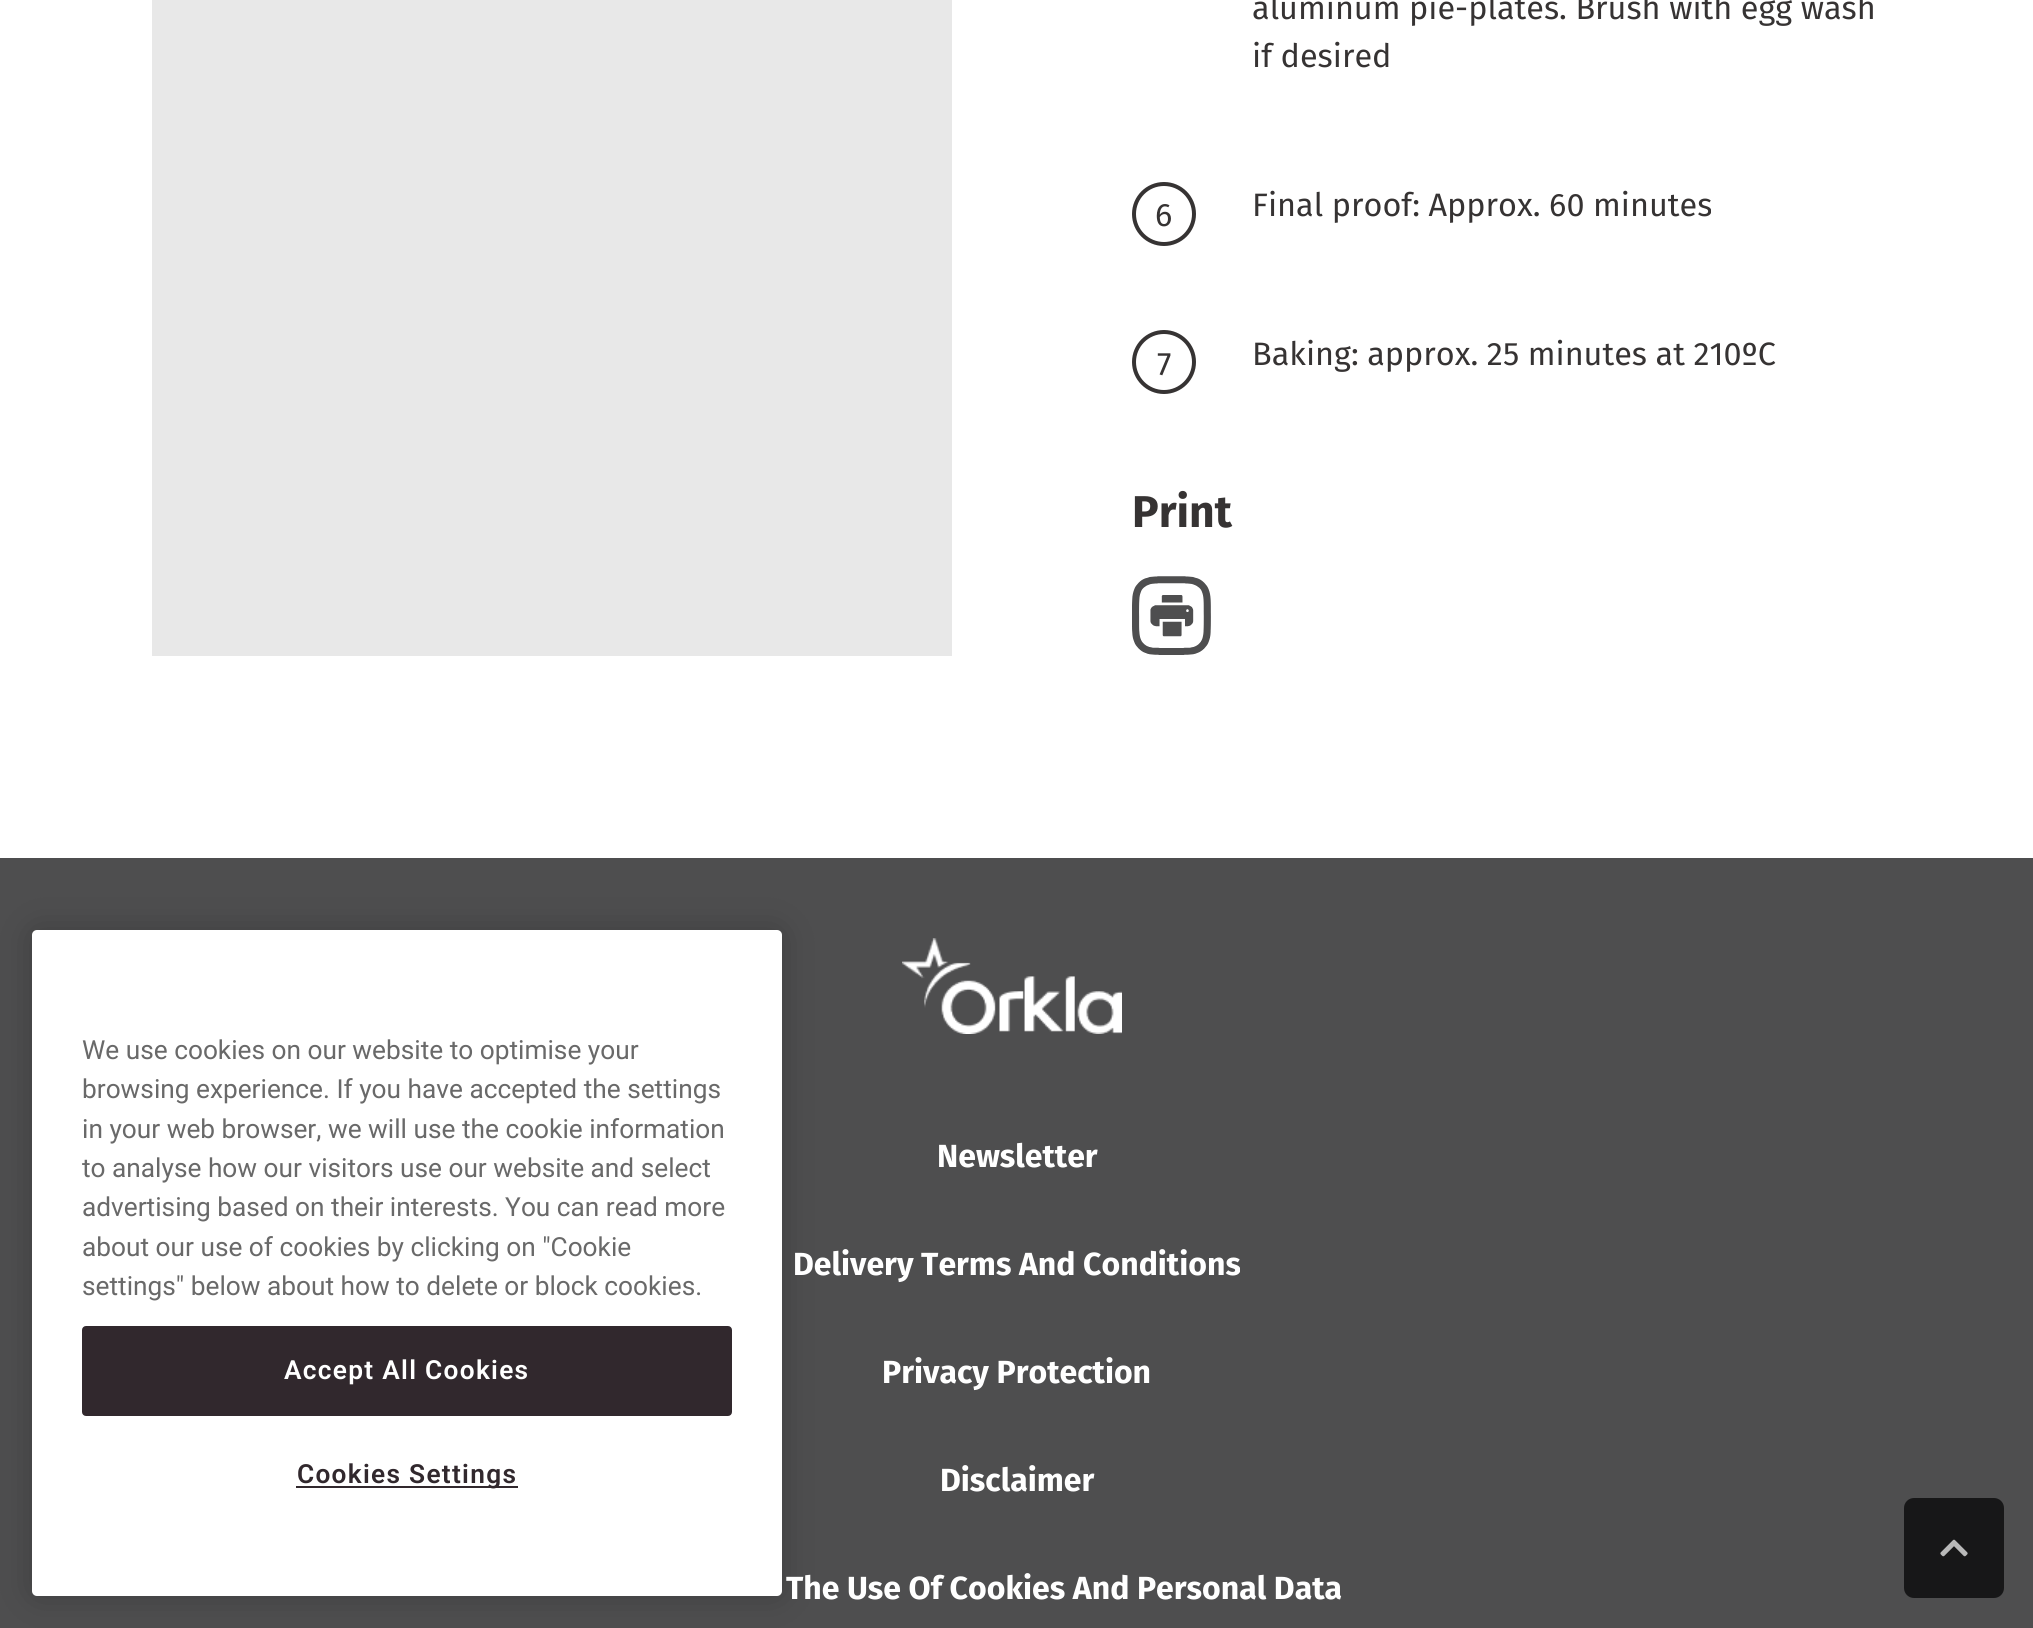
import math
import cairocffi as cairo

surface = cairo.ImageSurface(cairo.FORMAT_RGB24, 2033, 1628)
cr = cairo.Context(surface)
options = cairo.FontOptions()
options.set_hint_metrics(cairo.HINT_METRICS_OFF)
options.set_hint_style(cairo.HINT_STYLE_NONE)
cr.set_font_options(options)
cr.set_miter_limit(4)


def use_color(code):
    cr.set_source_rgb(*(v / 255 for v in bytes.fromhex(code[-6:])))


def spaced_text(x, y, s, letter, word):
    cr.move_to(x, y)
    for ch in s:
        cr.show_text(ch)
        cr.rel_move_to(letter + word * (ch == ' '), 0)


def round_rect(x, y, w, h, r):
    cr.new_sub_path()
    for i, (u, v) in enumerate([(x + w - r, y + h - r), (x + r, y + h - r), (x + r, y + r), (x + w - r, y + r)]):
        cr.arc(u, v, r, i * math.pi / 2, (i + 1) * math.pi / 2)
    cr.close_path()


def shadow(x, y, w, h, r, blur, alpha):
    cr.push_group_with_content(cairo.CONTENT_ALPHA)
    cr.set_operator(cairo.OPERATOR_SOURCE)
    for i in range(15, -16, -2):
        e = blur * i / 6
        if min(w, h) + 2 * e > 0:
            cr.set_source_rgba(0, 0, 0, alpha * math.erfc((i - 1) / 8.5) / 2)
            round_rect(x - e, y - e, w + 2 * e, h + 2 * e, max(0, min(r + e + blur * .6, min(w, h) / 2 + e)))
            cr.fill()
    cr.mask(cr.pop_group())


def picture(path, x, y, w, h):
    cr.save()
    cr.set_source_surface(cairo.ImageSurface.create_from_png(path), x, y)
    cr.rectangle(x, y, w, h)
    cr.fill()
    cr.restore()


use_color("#ffffff")
cr.paint()
use_color("#e8e8e8")
cr.rectangle(152, 0, 800, 656)
cr.fill()
cr.select_font_face("Fira Sans")
cr.set_font_size(32.4)
use_color("#363333")
cr.move_to(1252, 19)
cr.show_text("aluminum pie-plates. Brush with egg wash")
cr.move_to(1252, 67)
cr.show_text("if desired")
cr.new_path()
cr.arc(1164, 214, 30, 0, 2 * math.pi)
cr.set_line_width(4)
cr.stroke()
cr.move_to(1155, 226)
cr.show_text("6")
cr.move_to(1252, 216)
cr.show_text("Final proof: Approx. 60 minutes")
cr.new_path()
cr.arc(1164, 362, 30, 0, 2 * math.pi)
cr.stroke()
cr.move_to(1157, 375)
cr.show_text("7")
cr.move_to(1252, 365)
cr.show_text("Baking: approx. 25 minutes at 210ºC")
cr.select_font_face("Fira Sans", cairo.FONT_SLANT_NORMAL, cairo.FONT_WEIGHT_BOLD)
cr.set_font_size(44.5)
cr.move_to(1132, 527)
cr.show_text("Print")
picture("img1.png", 1132, 576, 79, 79)
use_color("#4e4e4f")
cr.rectangle(0, 858, 2033, 770)
cr.fill()
use_color("#000000")
shadow(32, 930, 750, 666, 5, 18, 0.2)
use_color("#ffffff")
round_rect(32, 930, 750, 666, 5)
cr.fill()
cr.select_font_face("Roboto")
cr.set_font_size(26.25)
use_color("#696969")
cr.move_to(82, 1059)
cr.show_text("We use cookies on our website to optimise your")
cr.move_to(82, 1098)
cr.show_text("browsing experience. If you have accepted the settings")
cr.move_to(82, 1138)
cr.show_text("in your web browser, we will use the cookie information")
cr.move_to(82, 1177)
cr.show_text("to analyse how our visitors use our website and select")
cr.move_to(82, 1216)
cr.show_text("advertising based on their interests. You can read more")
cr.move_to(82, 1256)
cr.show_text("about our use of cookies by clicking on \"Cookie")
cr.move_to(82, 1295)
cr.show_text("settings\" below about how to delete or block cookies.")
use_color("#31282d")
round_rect(83, 1327, 648, 88, 3)
cr.fill_preserve()
cr.set_line_width(2)
cr.stroke()
cr.select_font_face("Roboto SemiBold")
use_color("#ffffff")
spaced_text(284, 1379, "Accept All Cookies", 1.3, 0)
use_color("#31282d")
cr.rectangle(296, 1486, 222, 2)
cr.fill()
spaced_text(297, 1483, "Cookies Settings", 1.3, 0)
picture("img2.png", 902, 938, 220, 96)
cr.select_font_face("Fira Sans", cairo.FONT_SLANT_NORMAL, cairo.FONT_WEIGHT_BOLD)
cr.set_font_size(32)
use_color("#ffffff")
cr.move_to(937, 1167)
cr.show_text("Newsletter")
cr.move_to(793, 1275)
cr.show_text("Delivery Terms And Conditions")
cr.move_to(882, 1383)
cr.show_text("Privacy Protection")
cr.move_to(940, 1491)
cr.show_text("Disclaimer")
cr.move_to(786, 1599)
cr.show_text("The Use Of Cookies And Personal Data")
use_color("#171718")
round_rect(1904, 1498, 100, 100, 10)
cr.fill()
picture("img3.png", 1940, 1539, 28, 18)
surface.write_to_png("result.png")
